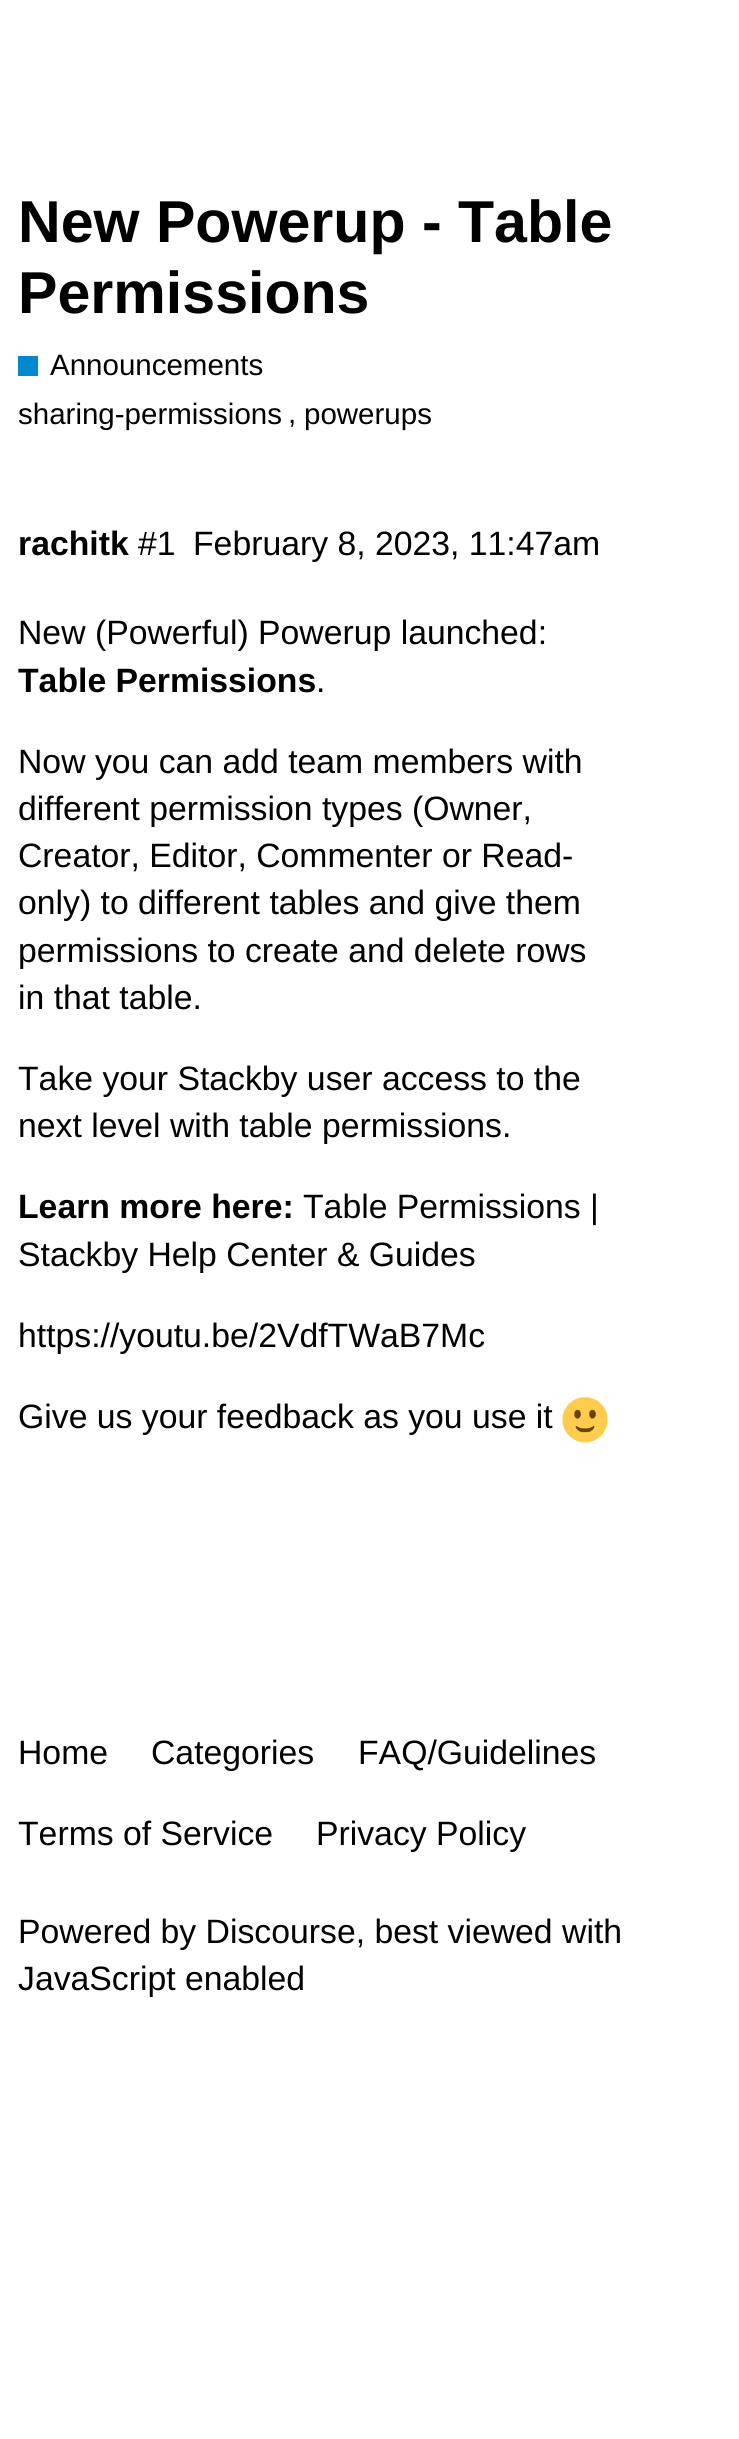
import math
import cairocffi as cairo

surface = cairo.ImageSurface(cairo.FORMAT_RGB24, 739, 2439)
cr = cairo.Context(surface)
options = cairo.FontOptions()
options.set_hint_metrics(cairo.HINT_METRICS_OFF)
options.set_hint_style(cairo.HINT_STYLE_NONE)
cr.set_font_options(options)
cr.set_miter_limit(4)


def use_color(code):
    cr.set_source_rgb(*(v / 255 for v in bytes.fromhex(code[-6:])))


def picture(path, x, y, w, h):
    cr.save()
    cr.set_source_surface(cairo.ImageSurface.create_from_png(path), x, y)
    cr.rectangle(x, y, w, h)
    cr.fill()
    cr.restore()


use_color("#ffffff")
cr.paint()
cr.select_font_face("Liberation Sans", cairo.FONT_SLANT_NORMAL, cairo.FONT_WEIGHT_BOLD)
cr.set_font_size(59.1)
use_color("#000000")
cr.move_to(18, 242)
cr.show_text("New Powerup - Table")
cr.move_to(18, 313)
cr.show_text("Permissions")
use_color("#0088cc")
cr.rectangle(18, 356, 20, 20)
cr.fill()
cr.select_font_face("Liberation Sans")
cr.set_font_size(29.5)
use_color("#000000")
cr.move_to(50, 375)
cr.show_text("Announcements")
cr.move_to(18, 424)
cr.show_text("sharing-permissions")
cr.move_to(288, 423)
cr.show_text(",")
cr.move_to(304, 424)
cr.show_text("powerups")
cr.select_font_face("Liberation Sans", cairo.FONT_SLANT_NORMAL, cairo.FONT_WEIGHT_BOLD)
cr.set_font_size(33.75)
cr.move_to(18, 555)
cr.show_text("rachitk")
cr.select_font_face("Liberation Sans")
cr.move_to(138, 555)
cr.show_text("#1")
cr.move_to(193, 555)
cr.show_text("February 8, 2023, 11:47am")
cr.move_to(18, 644)
cr.show_text("New (Powerful) Powerup launched:")
cr.select_font_face("Liberation Sans", cairo.FONT_SLANT_NORMAL, cairo.FONT_WEIGHT_BOLD)
cr.move_to(18, 692)
cr.show_text("Table Permissions")
cr.select_font_face("Liberation Sans")
cr.move_to(316, 692)
cr.show_text(".")
cr.move_to(18, 773)
cr.show_text("Now you can add team members with")
cr.move_to(18, 820)
cr.show_text("different permission types (Owner,")
cr.move_to(18, 867)
cr.show_text("Creator, Editor, Commenter or Read-")
cr.move_to(18, 914)
cr.show_text("only) to different tables and give them")
cr.move_to(18, 962)
cr.show_text("permissions to create and delete rows")
cr.move_to(18, 1009)
cr.show_text("in that table.")
cr.move_to(18, 1090)
cr.show_text("Take your Stackby user access to the")
cr.move_to(18, 1137)
cr.show_text("next level with table permissions.")
cr.select_font_face("Liberation Sans", cairo.FONT_SLANT_NORMAL, cairo.FONT_WEIGHT_BOLD)
cr.move_to(18, 1218)
cr.show_text("Learn more here:")
cr.select_font_face("Liberation Sans")
cr.move_to(303, 1218)
cr.show_text("Table Permissions |")
cr.move_to(18, 1266)
cr.show_text("Stackby Help Center & Guides")
cr.move_to(18, 1347)
cr.show_text("https://youtu.be/2VdfTWaB7Mc")
cr.move_to(18, 1428)
cr.show_text("Give us your feedback as you use it")
picture("img1.png", 562, 1397, 46, 46)
cr.move_to(18, 1764)
cr.show_text("Home")
cr.move_to(151, 1764)
cr.show_text("Categories")
cr.move_to(358, 1764)
cr.show_text("FAQ/Guidelines")
cr.move_to(18, 1845)
cr.show_text("Terms of Service")
cr.move_to(316, 1845)
cr.show_text("Privacy Policy")
cr.move_to(18, 1943)
cr.show_text("Powered by Discourse, best viewed with")
cr.move_to(18, 1990)
cr.show_text("JavaScript enabled")
surface.write_to_png("result.png")
